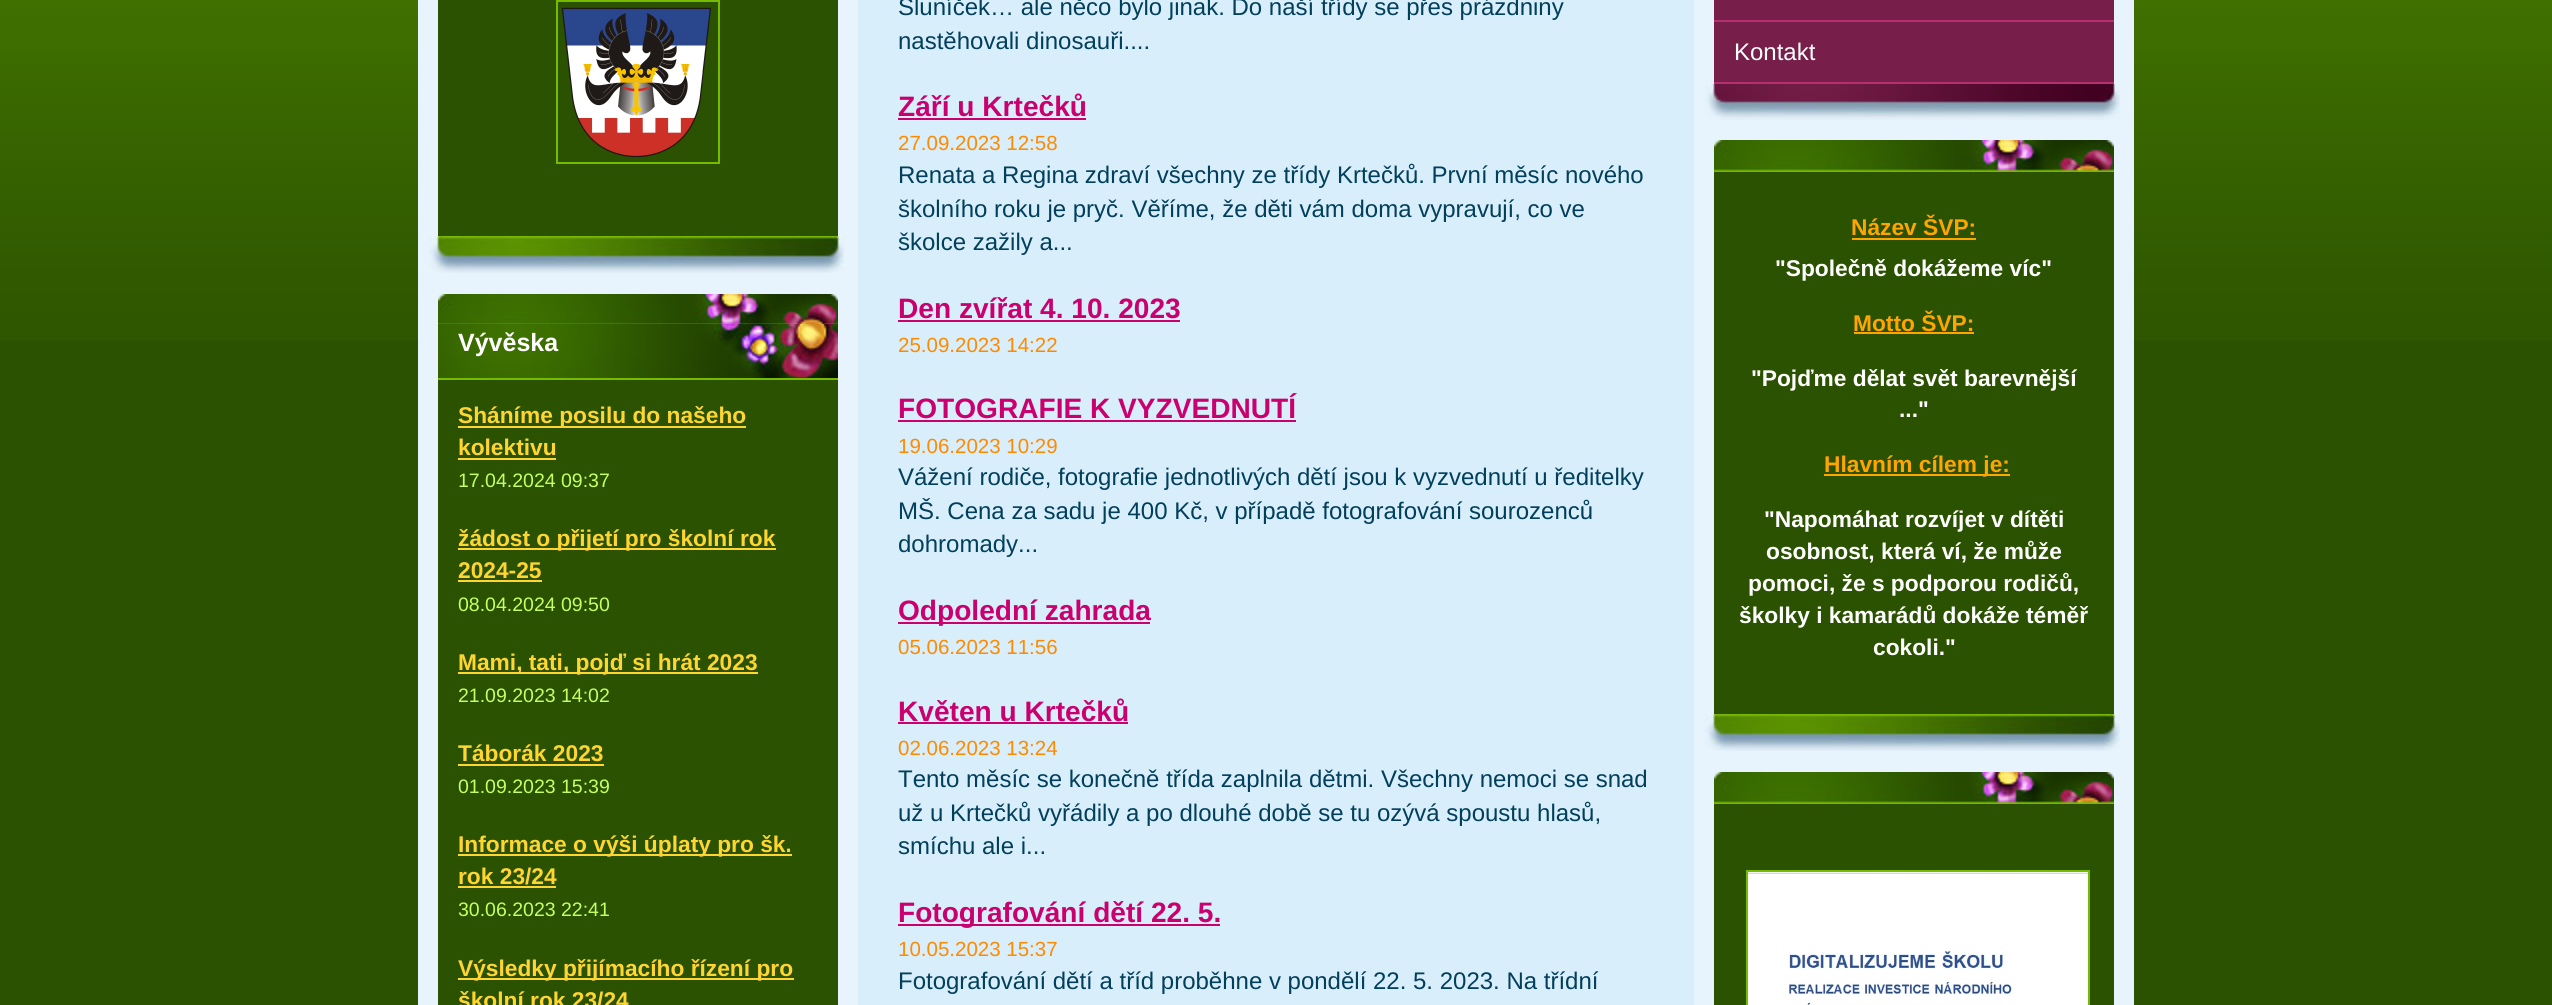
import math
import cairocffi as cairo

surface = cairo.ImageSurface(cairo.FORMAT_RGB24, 2552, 1005)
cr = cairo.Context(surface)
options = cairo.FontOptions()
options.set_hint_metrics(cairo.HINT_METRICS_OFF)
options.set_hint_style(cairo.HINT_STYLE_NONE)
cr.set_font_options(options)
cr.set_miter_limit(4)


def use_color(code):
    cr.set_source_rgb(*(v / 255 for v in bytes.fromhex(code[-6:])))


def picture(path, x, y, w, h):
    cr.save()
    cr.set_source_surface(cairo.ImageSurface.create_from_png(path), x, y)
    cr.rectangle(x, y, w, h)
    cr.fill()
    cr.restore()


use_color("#2b5200")
cr.paint()
picture("img1.png", 0, 0, 2552, 340)
use_color("#e7f4fd")
cr.rectangle(418, 0, 1716, 1005)
cr.fill()
picture("img2.png", 428, 236, 416, 37)
use_color("#2b5200")
cr.rectangle(438, 0, 400, 236)
cr.fill()
cr.rectangle(557, 1, 162, 162)
use_color("#76bb00")
cr.stroke()
picture("img3.png", 561, 7, 150, 151)
use_color("#2b5200")
cr.rectangle(438, 380, 400, 625)
cr.fill()
picture("img4.png", 438, 294, 400, 30)
picture("img5.png", 438, 324, 400, 54)
use_color("#76bb00")
cr.rectangle(438, 378, 400, 2)
cr.fill()
cr.select_font_face("Liberation Sans", cairo.FONT_SLANT_NORMAL, cairo.FONT_WEIGHT_BOLD)
cr.set_font_size(25)
use_color("#ffffff")
cr.move_to(458, 351)
cr.show_text("Vývěska")
use_color("#ffd532")
cr.rectangle(458, 426, 288, 2)
cr.fill()
cr.set_font_size(22.75)
cr.move_to(458, 423)
cr.show_text("Sháníme posilu do našeho")
cr.move_to(458, 455)
cr.show_text("kolektivu")
cr.rectangle(458, 458, 98, 2)
cr.fill()
cr.select_font_face("Liberation Sans")
cr.set_font_size(19.5)
use_color("#c6ff64")
cr.move_to(458, 487)
cr.show_text("17.04.2024 09:37")
use_color("#ffd532")
cr.rectangle(458, 548, 318, 2)
cr.fill()
cr.select_font_face("Liberation Sans", cairo.FONT_SLANT_NORMAL, cairo.FONT_WEIGHT_BOLD)
cr.set_font_size(22.75)
cr.move_to(458, 546)
cr.show_text("žádost o přijetí pro školní rok")
cr.move_to(458, 578)
cr.show_text("2024-25")
cr.rectangle(458, 580, 84, 2)
cr.fill()
cr.select_font_face("Liberation Sans")
cr.set_font_size(19.5)
use_color("#c6ff64")
cr.move_to(458, 611)
cr.show_text("08.04.2024 09:50")
use_color("#ffd532")
cr.rectangle(458, 672, 300, 2)
cr.fill()
cr.select_font_face("Liberation Sans", cairo.FONT_SLANT_NORMAL, cairo.FONT_WEIGHT_BOLD)
cr.set_font_size(22.75)
cr.move_to(458, 670)
cr.show_text("Mami, tati, pojď si hrát 2023")
cr.select_font_face("Liberation Sans")
cr.set_font_size(19.5)
use_color("#c6ff64")
cr.move_to(458, 702)
cr.show_text("21.09.2023 14:02")
cr.select_font_face("Liberation Sans", cairo.FONT_SLANT_NORMAL, cairo.FONT_WEIGHT_BOLD)
cr.set_font_size(22.75)
use_color("#ffd532")
cr.move_to(458, 761)
cr.show_text("Táborák 2023")
cr.rectangle(458, 764, 146, 2)
cr.fill()
cr.select_font_face("Liberation Sans")
cr.set_font_size(19.5)
use_color("#c6ff64")
cr.move_to(458, 793)
cr.show_text("01.09.2023 15:39")
use_color("#ffd532")
cr.rectangle(458, 854, 334, 2)
cr.fill()
cr.select_font_face("Liberation Sans", cairo.FONT_SLANT_NORMAL, cairo.FONT_WEIGHT_BOLD)
cr.set_font_size(22.75)
cr.move_to(458, 852)
cr.show_text("Informace o výši úplaty pro šk.")
cr.move_to(458, 884)
cr.show_text("rok 23/24")
cr.rectangle(458, 886, 98, 2)
cr.fill()
cr.select_font_face("Liberation Sans")
cr.set_font_size(19.5)
use_color("#c6ff64")
cr.move_to(458, 916)
cr.show_text("30.06.2023 22:41")
use_color("#ffd532")
cr.rectangle(458, 978, 336, 2)
cr.fill()
cr.select_font_face("Liberation Sans", cairo.FONT_SLANT_NORMAL, cairo.FONT_WEIGHT_BOLD)
cr.set_font_size(22.75)
cr.move_to(458, 976)
cr.show_text("Výsledky přijímacího řízení pro")
cr.move_to(458, 1008)
cr.show_text("školní rok 23/24")
use_color("#d8eefb")
cr.rectangle(858, 0, 836, 1005)
cr.fill()
cr.select_font_face("Liberation Sans")
cr.set_font_size(24)
use_color("#013f5b")
cr.move_to(898, 15)
cr.show_text("Sluníček… ale něco bylo jinak. Do naší třídy se přes prázdniny")
cr.move_to(898, 49)
cr.show_text("nastěhovali dinosauři....")
cr.select_font_face("Liberation Sans", cairo.FONT_SLANT_NORMAL, cairo.FONT_WEIGHT_BOLD)
cr.set_font_size(28.1)
use_color("#cb006f")
cr.move_to(898, 116)
cr.show_text("Září u Krtečků")
cr.rectangle(898, 118, 188, 2)
cr.fill()
cr.select_font_face("Liberation Sans")
cr.set_font_size(20.5)
use_color("#ff8a00")
cr.move_to(898, 150)
cr.show_text("27.09.2023 12:58")
cr.set_font_size(24)
use_color("#013f5b")
cr.move_to(898, 183)
cr.show_text("Renata a Regina zdraví všechny ze třídy Krtečků. První měsíc nového")
cr.move_to(898, 217)
cr.show_text("školního roku je pryč. Věříme, že děti vám doma vypravují, co ve")
cr.move_to(898, 250)
cr.show_text("školce zažily a...")
cr.select_font_face("Liberation Sans", cairo.FONT_SLANT_NORMAL, cairo.FONT_WEIGHT_BOLD)
cr.set_font_size(28.1)
use_color("#cb006f")
cr.move_to(898, 318)
cr.show_text("Den zvířat 4. 10. 2023")
cr.rectangle(898, 320, 282, 2)
cr.fill()
cr.select_font_face("Liberation Sans")
cr.set_font_size(20.5)
use_color("#ff8a00")
cr.move_to(898, 352)
cr.show_text("25.09.2023 14:22")
cr.select_font_face("Liberation Sans", cairo.FONT_SLANT_NORMAL, cairo.FONT_WEIGHT_BOLD)
cr.set_font_size(28.1)
use_color("#cb006f")
cr.move_to(898, 418)
cr.show_text("FOTOGRAFIE K VYZVEDNUTÍ")
cr.rectangle(898, 420, 398, 2)
cr.fill()
cr.select_font_face("Liberation Sans")
cr.set_font_size(20.5)
use_color("#ff8a00")
cr.move_to(898, 453)
cr.show_text("19.06.2023 10:29")
cr.set_font_size(24)
use_color("#013f5b")
cr.move_to(898, 485)
cr.show_text("Vážení rodiče, fotografie jednotlivých dětí jsou k vyzvednutí u ředitelky")
cr.move_to(898, 519)
cr.show_text("MŠ. Cena za sadu je 400 Kč, v případě fotografování sourozenců")
cr.move_to(898, 552)
cr.show_text("dohromady...")
use_color("#cb006f")
cr.rectangle(898, 622, 252, 2)
cr.fill()
cr.select_font_face("Liberation Sans", cairo.FONT_SLANT_NORMAL, cairo.FONT_WEIGHT_BOLD)
cr.set_font_size(28.1)
cr.move_to(898, 620)
cr.show_text("Odpolední zahrada")
cr.select_font_face("Liberation Sans")
cr.set_font_size(20.5)
use_color("#ff8a00")
cr.move_to(898, 654)
cr.show_text("05.06.2023 11:56")
cr.select_font_face("Liberation Sans", cairo.FONT_SLANT_NORMAL, cairo.FONT_WEIGHT_BOLD)
cr.set_font_size(28.1)
use_color("#cb006f")
cr.move_to(898, 721)
cr.show_text("Květen u Krtečků")
cr.rectangle(898, 722, 230, 2)
cr.fill()
cr.select_font_face("Liberation Sans")
cr.set_font_size(20.5)
use_color("#ff8a00")
cr.move_to(898, 755)
cr.show_text("02.06.2023 13:24")
cr.set_font_size(24)
use_color("#013f5b")
cr.move_to(898, 787)
cr.show_text("Tento měsíc se konečně třída zaplnila dětmi. Všechny nemoci se snad")
cr.move_to(898, 821)
cr.show_text("už u Krtečků vyřádily a po dlouhé době se tu ozývá spoustu hlasů,")
cr.move_to(898, 854)
cr.show_text("smíchu ale i...")
use_color("#cb006f")
cr.rectangle(898, 924, 322, 2)
cr.fill()
cr.select_font_face("Liberation Sans", cairo.FONT_SLANT_NORMAL, cairo.FONT_WEIGHT_BOLD)
cr.set_font_size(28.1)
cr.move_to(898, 922)
cr.show_text("Fotografování dětí 22. 5.")
cr.select_font_face("Liberation Sans")
cr.set_font_size(20.5)
use_color("#ff8a00")
cr.move_to(898, 956)
cr.show_text("10.05.2023 15:37")
cr.set_font_size(24)
use_color("#013f5b")
cr.move_to(898, 989)
cr.show_text("Fotografování dětí a tříd proběhne v pondělí 22. 5. 2023. Na třídní")
picture("img6.png", 1704, 84, 416, 36)
use_color("#771f4a")
cr.rectangle(1714, 0, 400, 82)
cr.fill()
use_color("#b62f71")
cr.rectangle(1714, 20, 400, 2)
cr.fill()
cr.rectangle(1714, 82, 400, 2)
cr.fill()
use_color("#ffffff")
cr.move_to(1734, 60)
cr.show_text("Kontakt")
picture("img2.png", 1704, 714, 416, 37)
use_color("#2b5200")
cr.rectangle(1714, 172, 400, 542)
cr.fill()
picture("img7.png", 1714, 140, 400, 32)
cr.select_font_face("Liberation Sans", cairo.FONT_SLANT_NORMAL, cairo.FONT_WEIGHT_BOLD)
cr.set_font_size(22.75)
use_color("#ffa500")
cr.move_to(1851, 235)
cr.show_text("Název ŠVP:")
cr.rectangle(1852, 238, 124, 2)
cr.fill()
use_color("#ffffff")
cr.move_to(1775, 276)
cr.show_text("\"Společně dokážeme víc\"")
use_color("#ffa500")
cr.move_to(1853, 331)
cr.show_text("Motto ŠVP:")
cr.rectangle(1854, 332, 120, 2)
cr.fill()
use_color("#ffffff")
cr.move_to(1751, 386)
cr.show_text("\"Pojďme dělat svět barevnější")
cr.move_to(1899, 417)
cr.show_text("...\"")
use_color("#ffa500")
cr.rectangle(1824, 474, 186, 2)
cr.fill()
cr.move_to(1824, 472)
cr.show_text("Hlavním cílem je:")
use_color("#ffffff")
cr.move_to(1764, 527)
cr.show_text("\"Napomáhat rozvíjet v dítěti")
cr.move_to(1766, 559)
cr.show_text("osobnost, která ví, že může")
cr.move_to(1748, 591)
cr.show_text("pomoci, že s podporou rodičů,")
cr.move_to(1739, 623)
cr.show_text("školky i kamarádů dokáže téměř")
cr.move_to(1873, 655)
cr.show_text("cokoli.\"")
use_color("#2b5200")
cr.rectangle(1714, 804, 400, 201)
cr.fill()
picture("img7.png", 1714, 772, 400, 32)
cr.rectangle(1747, 871, 342, 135)
use_color("#76bb00")
cr.stroke()
picture("img8.png", 1748, 872, 340, 133)
surface.write_to_png("result.png")
